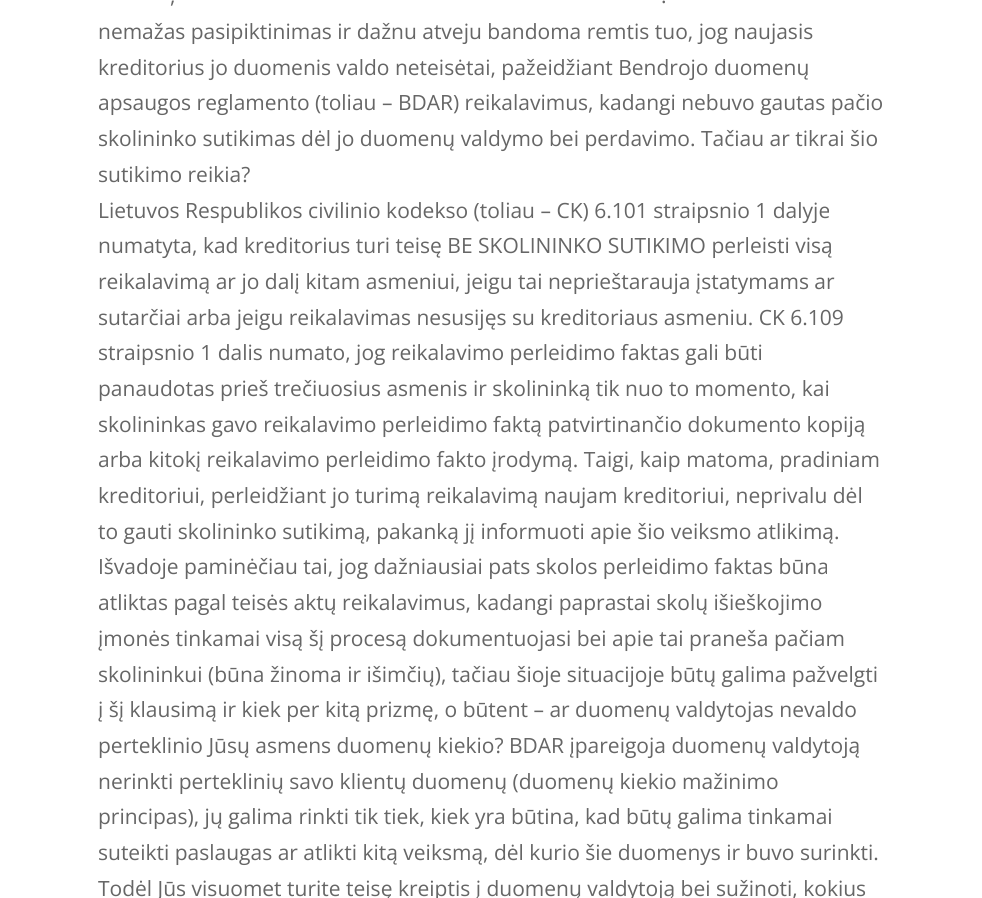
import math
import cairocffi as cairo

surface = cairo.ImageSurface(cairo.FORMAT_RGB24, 982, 898)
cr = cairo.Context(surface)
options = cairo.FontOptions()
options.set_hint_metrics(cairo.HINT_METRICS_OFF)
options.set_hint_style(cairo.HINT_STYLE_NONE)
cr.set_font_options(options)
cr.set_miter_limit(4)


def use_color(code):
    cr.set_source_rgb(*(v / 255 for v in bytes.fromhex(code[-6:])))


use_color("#ffffff")
cr.paint()
cr.select_font_face("Open Sans")
cr.set_font_size(21)
use_color("#666666")
cr.move_to(170, 3)
cr.show_text(",")
cr.move_to(661, 3)
cr.show_text(".")
cr.move_to(98, 39)
cr.show_text("nemažas pasipiktinimas ir dažnu atveju bandoma remtis tuo, jog naujasis")
cr.move_to(98, 75)
cr.show_text("kreditorius jo duomenis valdo neteisėtai, pažeidžiant Bendrojo duomenų")
cr.move_to(98, 110)
cr.show_text("apsaugos reglamento (toliau – BDAR) reikalavimus, kadangi nebuvo gautas pačio")
cr.move_to(98, 146)
cr.show_text("skolininko sutikimas dėl jo duomenų valdymo bei perdavimo. Tačiau ar tikrai šio")
cr.move_to(98, 182)
cr.show_text("sutikimo reikia?")
cr.move_to(98, 218)
cr.show_text("Lietuvos Respublikos civilinio kodekso (toliau – CK) 6.101 straipsnio 1 dalyje")
cr.move_to(98, 253)
cr.show_text("numatyta, kad kreditorius turi teisę BE SKOLININKO SUTIKIMO perleisti visą")
cr.move_to(98, 289)
cr.show_text("reikalavimą ar jo dalį kitam asmeniui, jeigu tai neprieštarauja įstatymams ar")
cr.move_to(98, 325)
cr.show_text("sutarčiai arba jeigu reikalavimas nesusijęs su kreditoriaus asmeniu. CK 6.109")
cr.move_to(98, 360)
cr.show_text("straipsnio 1 dalis numato, jog reikalavimo perleidimo faktas gali būti")
cr.move_to(98, 396)
cr.show_text("panaudotas prieš trečiuosius asmenis ir skolininką tik nuo to momento, kai")
cr.move_to(98, 432)
cr.show_text("skolininkas gavo reikalavimo perleidimo faktą patvirtinančio dokumento kopiją")
cr.move_to(98, 467)
cr.show_text("arba kitokį reikalavimo perleidimo fakto įrodymą. Taigi, kaip matoma, pradiniam")
cr.move_to(98, 503)
cr.show_text("kreditoriui, perleidžiant jo turimą reikalavimą naujam kreditoriui, neprivalu dėl")
cr.move_to(98, 539)
cr.show_text("to gauti skolininko sutikimą, pakanką jį informuoti apie šio veiksmo atlikimą.")
cr.move_to(98, 574)
cr.show_text("Išvadoje paminėčiau tai, jog dažniausiai pats skolos perleidimo faktas būna")
cr.move_to(98, 610)
cr.show_text("atliktas pagal teisės aktų reikalavimus, kadangi paprastai skolų išieškojimo")
cr.move_to(98, 646)
cr.show_text("įmonės tinkamai visą šį procesą dokumentuojasi bei apie tai praneša pačiam")
cr.move_to(98, 682)
cr.show_text("skolininkui (būna žinoma ir išimčių), tačiau šioje situacijoje būtų galima pažvelgti")
cr.move_to(98, 717)
cr.show_text("į šį klausimą ir kiek per kitą prizmę, o būtent – ar duomenų valdytojas nevaldo")
cr.move_to(98, 753)
cr.show_text("perteklinio Jūsų asmens duomenų kiekio? BDAR įpareigoja duomenų valdytoją")
cr.move_to(98, 789)
cr.show_text("nerinkti perteklinių savo klientų duomenų (duomenų kiekio mažinimo")
cr.move_to(98, 824)
cr.show_text("principas), jų galima rinkti tik tiek, kiek yra būtina, kad būtų galima tinkamai")
cr.move_to(98, 860)
cr.show_text("suteikti paslaugas ar atlikti kitą veiksmą, dėl kurio šie duomenys ir buvo surinkti.")
cr.move_to(98, 896)
cr.show_text("Todėl Jūs visuomet turite teisę kreiptis į duomenų valdytoją bei sužinoti, kokius")
surface.write_to_png("result.png")
